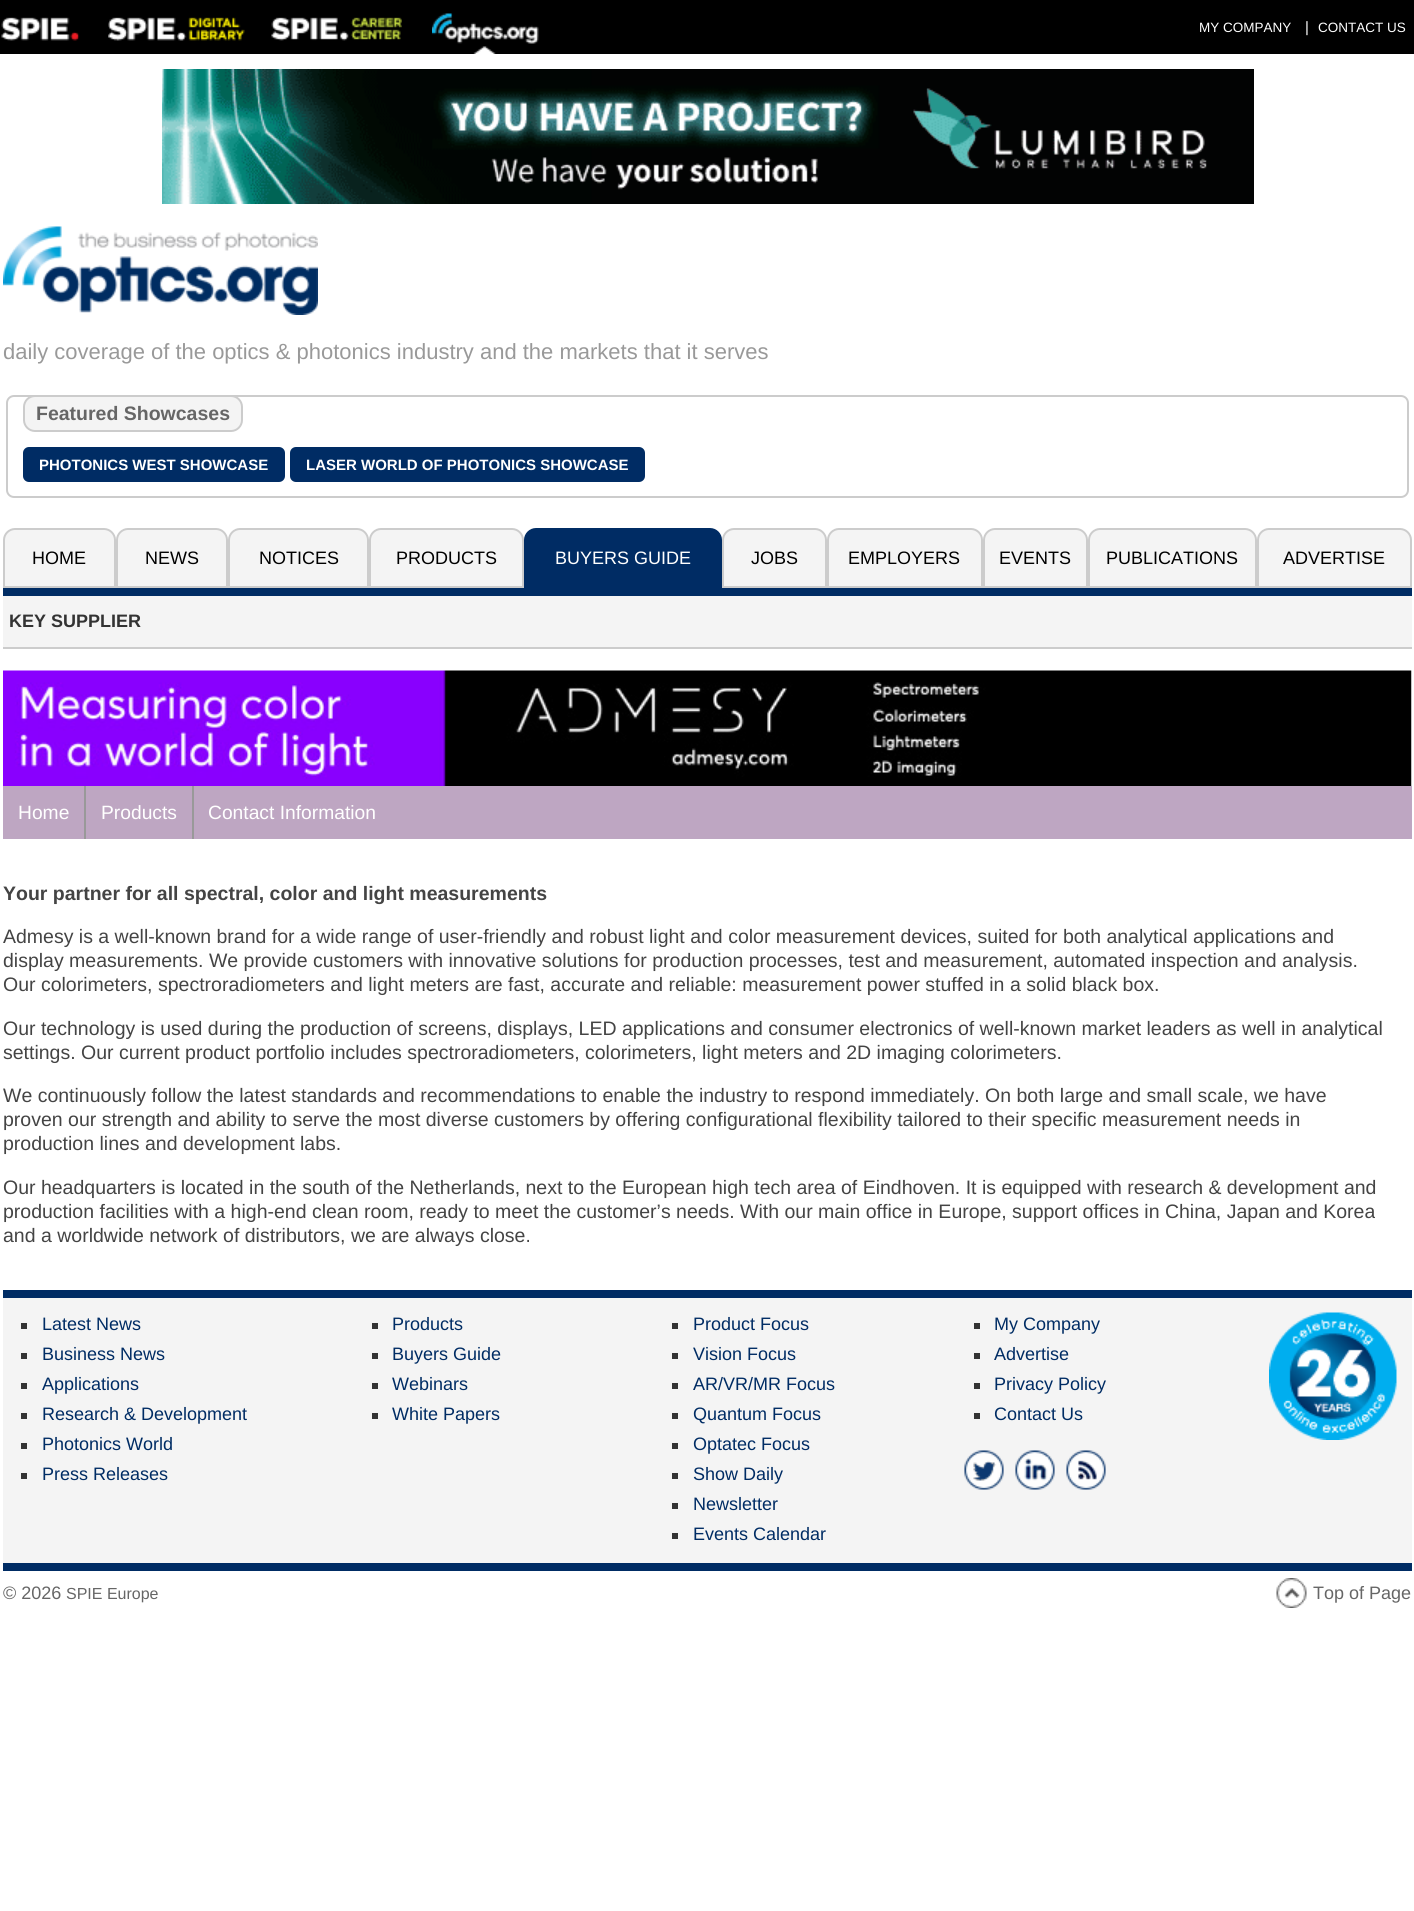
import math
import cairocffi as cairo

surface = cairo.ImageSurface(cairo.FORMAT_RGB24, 1414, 1911)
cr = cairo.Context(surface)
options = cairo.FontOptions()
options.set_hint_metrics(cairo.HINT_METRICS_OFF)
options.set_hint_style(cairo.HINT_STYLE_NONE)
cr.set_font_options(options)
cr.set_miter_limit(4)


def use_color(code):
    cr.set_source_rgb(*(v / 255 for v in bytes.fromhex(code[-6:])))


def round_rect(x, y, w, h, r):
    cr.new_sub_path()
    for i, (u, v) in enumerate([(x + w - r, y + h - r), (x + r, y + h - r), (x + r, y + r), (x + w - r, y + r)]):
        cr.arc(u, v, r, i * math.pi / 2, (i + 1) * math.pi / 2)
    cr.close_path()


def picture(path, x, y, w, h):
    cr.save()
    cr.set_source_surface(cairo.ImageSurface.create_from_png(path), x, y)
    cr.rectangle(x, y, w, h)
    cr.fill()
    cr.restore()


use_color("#ffffff")
cr.paint()
use_color("#000000")
cr.rectangle(0, 0, 1414, 54)
cr.fill()
picture("img1.png", 1, 17, 79, 24)
picture("img2.png", 108, 17, 137, 24)
picture("img3.png", 271, 17, 131, 24)
picture("img4.png", 432, 13, 107, 41)
cr.select_font_face("Liberation Sans")
cr.set_font_size(13.5)
use_color("#ffffff")
cr.move_to(1199, 32)
cr.show_text("MY COMPANY")
cr.set_font_size(15)
cr.move_to(1305, 32)
cr.show_text("|")
cr.set_font_size(13.5)
cr.move_to(1318, 32)
cr.show_text("CONTACT US")
picture("img5.png", 162, 69, 1092, 135)
picture("img6.png", 3, 226, 315, 89)
cr.set_font_size(22)
use_color("#999999")
cr.move_to(3, 359)
cr.show_text("daily coverage of the optics & photonics industry and the markets that it serves")
round_rect(7, 396, 1401, 101, 7)
use_color("#cccccc")
cr.stroke()
use_color("#f4f4f4")
round_rect(24, 396, 218, 35, 11)
cr.fill_preserve()
use_color("#cccccc")
cr.stroke()
cr.select_font_face("Liberation Sans", cairo.FONT_SLANT_NORMAL, cairo.FONT_WEIGHT_BOLD)
cr.set_font_size(19.5)
use_color("#666666")
cr.move_to(36, 420)
cr.show_text("Featured Showcases")
use_color("#002c64")
round_rect(24, 448, 260, 33, 5)
cr.fill_preserve()
cr.stroke()
cr.set_font_size(15)
use_color("#ffffff")
cr.move_to(39, 470)
cr.show_text("PHOTONICS WEST SHOWCASE")
use_color("#002c64")
round_rect(291, 448, 353, 33, 5)
cr.fill_preserve()
cr.stroke()
use_color("#ffffff")
cr.move_to(306, 470)
cr.show_text("LASER WORLD OF PHOTONICS SHOWCASE")
use_color("#002c64")
cr.rectangle(3, 588, 1409, 8)
cr.fill()
use_color("#f4f4f4")
cr.new_path()
cr.move_to(15, 529)
cr.line_to(104, 529)
cr.curve_to(110, 529, 115, 534, 115, 540)
cr.line_to(115, 587)
cr.line_to(4, 587)
cr.line_to(4, 540)
cr.curve_to(4, 534, 9, 529, 15, 529)
cr.close_path()
cr.fill_preserve()
use_color("#cccccc")
cr.stroke()
cr.select_font_face("Liberation Sans")
cr.set_font_size(18)
use_color("#000000")
cr.move_to(32, 564)
cr.show_text("HOME")
use_color("#f4f4f4")
cr.new_path()
cr.move_to(128, 529)
cr.line_to(216, 529)
cr.curve_to(222, 529, 227, 534, 227, 540)
cr.line_to(227, 587)
cr.line_to(117, 587)
cr.line_to(117, 540)
cr.curve_to(117, 534, 122, 529, 128, 529)
cr.close_path()
cr.fill_preserve()
use_color("#cccccc")
cr.stroke()
use_color("#000000")
cr.move_to(145, 564)
cr.show_text("NEWS")
use_color("#f4f4f4")
cr.new_path()
cr.move_to(240, 529)
cr.line_to(357, 529)
cr.curve_to(363, 529, 368, 534, 368, 540)
cr.line_to(368, 587)
cr.line_to(229, 587)
cr.line_to(229, 540)
cr.curve_to(229, 534, 234, 529, 240, 529)
cr.close_path()
cr.fill_preserve()
use_color("#cccccc")
cr.stroke()
use_color("#000000")
cr.move_to(259, 564)
cr.show_text("NOTICES")
use_color("#f4f4f4")
cr.new_path()
cr.move_to(381, 529)
cr.line_to(512, 529)
cr.curve_to(518, 529, 523, 534, 523, 540)
cr.line_to(523, 587)
cr.line_to(370, 587)
cr.line_to(370, 540)
cr.curve_to(370, 534, 375, 529, 381, 529)
cr.close_path()
cr.fill_preserve()
use_color("#cccccc")
cr.stroke()
use_color("#000000")
cr.move_to(396, 564)
cr.show_text("PRODUCTS")
use_color("#002c64")
cr.new_path()
cr.move_to(536, 529)
cr.line_to(710, 529)
cr.curve_to(716, 529, 721, 534, 721, 540)
cr.line_to(721, 587)
cr.line_to(525, 587)
cr.line_to(525, 540)
cr.curve_to(525, 534, 530, 529, 536, 529)
cr.close_path()
cr.fill_preserve()
cr.stroke()
use_color("#ffffff")
cr.move_to(555, 564)
cr.show_text("BUYERS GUIDE")
use_color("#f4f4f4")
cr.new_path()
cr.move_to(734, 529)
cr.line_to(815, 529)
cr.curve_to(821, 529, 826, 534, 826, 540)
cr.line_to(826, 587)
cr.line_to(723, 587)
cr.line_to(723, 540)
cr.curve_to(723, 534, 728, 529, 734, 529)
cr.close_path()
cr.fill_preserve()
use_color("#cccccc")
cr.stroke()
use_color("#000000")
cr.move_to(751, 564)
cr.show_text("JOBS")
use_color("#f4f4f4")
cr.new_path()
cr.move_to(839, 529)
cr.line_to(971, 529)
cr.curve_to(977, 529, 982, 534, 982, 540)
cr.line_to(982, 587)
cr.line_to(828, 587)
cr.line_to(828, 540)
cr.curve_to(828, 534, 833, 529, 839, 529)
cr.close_path()
cr.fill_preserve()
use_color("#cccccc")
cr.stroke()
use_color("#000000")
cr.move_to(848, 564)
cr.show_text("EMPLOYERS")
use_color("#f4f4f4")
cr.new_path()
cr.move_to(995, 529)
cr.line_to(1076, 529)
cr.curve_to(1082, 529, 1087, 534, 1087, 540)
cr.line_to(1087, 587)
cr.line_to(984, 587)
cr.line_to(984, 540)
cr.curve_to(984, 534, 989, 529, 995, 529)
cr.close_path()
cr.fill_preserve()
use_color("#cccccc")
cr.stroke()
use_color("#000000")
cr.move_to(999, 564)
cr.show_text("EVENTS")
use_color("#f4f4f4")
cr.new_path()
cr.move_to(1100, 529)
cr.line_to(1245, 529)
cr.curve_to(1251, 529, 1256, 534, 1256, 540)
cr.line_to(1256, 587)
cr.line_to(1089, 587)
cr.line_to(1089, 540)
cr.curve_to(1089, 534, 1094, 529, 1100, 529)
cr.close_path()
cr.fill_preserve()
use_color("#cccccc")
cr.stroke()
use_color("#000000")
cr.move_to(1106, 564)
cr.show_text("PUBLICATIONS")
use_color("#f4f4f4")
cr.new_path()
cr.move_to(1269, 529)
cr.line_to(1400, 529)
cr.curve_to(1406, 529, 1411, 534, 1411, 540)
cr.line_to(1411, 587)
cr.line_to(1258, 587)
cr.line_to(1258, 540)
cr.curve_to(1258, 534, 1263, 529, 1269, 529)
cr.close_path()
cr.fill_preserve()
use_color("#cccccc")
cr.stroke()
use_color("#000000")
cr.move_to(1283, 564)
cr.show_text("ADVERTISE")
use_color("#f4f4f4")
cr.rectangle(3, 596, 1409, 51)
cr.fill()
use_color("#cccccc")
cr.rectangle(3, 647, 1409, 2)
cr.fill()
cr.select_font_face("Liberation Sans", cairo.FONT_SLANT_NORMAL, cairo.FONT_WEIGHT_BOLD)
use_color("#333333")
cr.move_to(9, 627)
cr.show_text("KEY SUPPLIER")
picture("img7.png", 3, 670, 1409, 116)
use_color("#bea6c2")
cr.rectangle(3, 786, 1409, 53)
cr.fill()
use_color("#999999")
cr.rectangle(84, 786, 2, 53)
cr.fill()
cr.select_font_face("Liberation Sans")
cr.set_font_size(19.25)
use_color("#ffffff")
cr.move_to(18, 819)
cr.show_text("Home")
use_color("#999999")
cr.rectangle(192, 786, 2, 53)
cr.fill()
use_color("#ffffff")
cr.move_to(101, 819)
cr.show_text("Products")
cr.move_to(208, 819)
cr.show_text("Contact Information")
cr.select_font_face("Liberation Sans", cairo.FONT_SLANT_NORMAL, cairo.FONT_WEIGHT_BOLD)
cr.set_font_size(19.5)
use_color("#444444")
cr.move_to(3, 900)
cr.show_text("Your partner for all spectral, color and light measurements")
cr.select_font_face("Liberation Sans")
cr.move_to(3, 943)
cr.show_text("Admesy is a well-known brand for a wide range of user-friendly and robust light and color measurement devices, suited for both analytical applications and")
cr.move_to(3, 967)
cr.show_text("display measurements. We provide customers with innovative solutions for production processes, test and measurement, automated inspection and analysis.")
cr.move_to(3, 991)
cr.show_text("Our colorimeters, spectroradiometers and light meters are fast, accurate and reliable: measurement power stuffed in a solid black box.")
cr.move_to(3, 1035)
cr.show_text("Our technology is used during the production of screens, displays, LED applications and consumer electronics of well-known market leaders as well in analytical")
cr.move_to(3, 1059)
cr.show_text("settings. Our current product portfolio includes spectroradiometers, colorimeters, light meters and 2D imaging colorimeters.")
cr.move_to(3, 1102)
cr.show_text("We continuously follow the latest standards and recommendations to enable the industry to respond immediately. On both large and small scale, we have")
cr.move_to(3, 1126)
cr.show_text("proven our strength and ability to serve the most diverse customers by offering configurational flexibility tailored to their specific measurement needs in")
cr.move_to(3, 1150)
cr.show_text("production lines and development labs.")
cr.move_to(3, 1194)
cr.show_text("Our headquarters is located in the south of the Netherlands, next to the European high tech area of Eindhoven. It is equipped with research & development and")
cr.move_to(3, 1218)
cr.show_text("production facilities with a high-end clean room, ready to meet the customer’s needs. With our main office in Europe, support offices in China, Japan and Korea")
cr.move_to(3, 1242)
cr.show_text("and a worldwide network of distributors, we are always close.")
use_color("#f4f4f4")
cr.rectangle(3, 1298, 1409, 265)
cr.fill()
use_color("#002c64")
cr.rectangle(3, 1290, 1409, 8)
cr.fill()
cr.rectangle(3, 1563, 1409, 8)
cr.fill()
use_color("#333333")
cr.rectangle(21, 1323, 6, 6)
cr.fill()
cr.set_font_size(18)
use_color("#002c64")
cr.move_to(42, 1330)
cr.show_text("Latest News")
use_color("#333333")
cr.rectangle(21, 1353, 6, 6)
cr.fill()
use_color("#002c64")
cr.move_to(42, 1360)
cr.show_text("Business News")
use_color("#333333")
cr.rectangle(21, 1383, 6, 6)
cr.fill()
use_color("#002c64")
cr.move_to(42, 1390)
cr.show_text("Applications")
use_color("#333333")
cr.rectangle(21, 1413, 6, 6)
cr.fill()
use_color("#002c64")
cr.move_to(42, 1420)
cr.show_text("Research & Development")
use_color("#333333")
cr.rectangle(21, 1443, 6, 6)
cr.fill()
use_color("#002c64")
cr.move_to(42, 1450)
cr.show_text("Photonics World")
use_color("#333333")
cr.rectangle(21, 1473, 6, 6)
cr.fill()
use_color("#002c64")
cr.move_to(42, 1480)
cr.show_text("Press Releases")
use_color("#333333")
cr.rectangle(372, 1323, 6, 6)
cr.fill()
use_color("#002c64")
cr.move_to(392, 1330)
cr.show_text("Products")
use_color("#333333")
cr.rectangle(372, 1353, 6, 6)
cr.fill()
use_color("#002c64")
cr.move_to(392, 1360)
cr.show_text("Buyers Guide")
use_color("#333333")
cr.rectangle(372, 1383, 6, 6)
cr.fill()
use_color("#002c64")
cr.move_to(392, 1390)
cr.show_text("Webinars")
use_color("#333333")
cr.rectangle(372, 1413, 6, 6)
cr.fill()
use_color("#002c64")
cr.move_to(392, 1420)
cr.show_text("White Papers")
use_color("#333333")
cr.rectangle(672, 1323, 6, 6)
cr.fill()
use_color("#002c64")
cr.move_to(693, 1330)
cr.show_text("Product Focus")
use_color("#333333")
cr.rectangle(672, 1353, 6, 6)
cr.fill()
use_color("#002c64")
cr.move_to(693, 1360)
cr.show_text("Vision Focus")
use_color("#333333")
cr.rectangle(672, 1383, 6, 6)
cr.fill()
use_color("#002c64")
cr.move_to(693, 1390)
cr.show_text("AR/VR/MR Focus")
use_color("#333333")
cr.rectangle(672, 1413, 6, 6)
cr.fill()
use_color("#002c64")
cr.move_to(693, 1420)
cr.show_text("Quantum Focus")
use_color("#333333")
cr.rectangle(672, 1443, 6, 6)
cr.fill()
use_color("#002c64")
cr.move_to(693, 1450)
cr.show_text("Optatec Focus")
use_color("#333333")
cr.rectangle(672, 1473, 6, 6)
cr.fill()
use_color("#002c64")
cr.move_to(693, 1480)
cr.show_text("Show Daily")
use_color("#333333")
cr.rectangle(672, 1503, 6, 6)
cr.fill()
use_color("#002c64")
cr.move_to(693, 1510)
cr.show_text("Newsletter")
use_color("#333333")
cr.rectangle(672, 1533, 6, 6)
cr.fill()
use_color("#002c64")
cr.move_to(693, 1540)
cr.show_text("Events Calendar")
use_color("#333333")
cr.rectangle(974, 1323, 6, 6)
cr.fill()
use_color("#002c64")
cr.move_to(994, 1330)
cr.show_text("My Company")
use_color("#333333")
cr.rectangle(974, 1353, 6, 6)
cr.fill()
use_color("#002c64")
cr.move_to(994, 1360)
cr.show_text("Advertise")
use_color("#333333")
cr.rectangle(974, 1383, 6, 6)
cr.fill()
use_color("#002c64")
cr.move_to(994, 1390)
cr.show_text("Privacy Policy")
use_color("#333333")
cr.rectangle(974, 1413, 6, 6)
cr.fill()
use_color("#002c64")
cr.move_to(994, 1420)
cr.show_text("Contact Us")
picture("img8.png", 964, 1450, 40, 40)
picture("img9.png", 1015, 1450, 40, 40)
picture("img10.png", 1066, 1450, 40, 40)
picture("img11.png", 1269, 1312, 128, 128)
use_color("#666666")
cr.move_to(3, 1599)
cr.show_text("© 2026")
cr.set_font_size(16)
cr.move_to(66, 1599)
cr.show_text("SPIE Europe")
picture("img12.png", 1276, 1578, 31, 30)
cr.set_font_size(18)
cr.move_to(1313, 1599)
cr.show_text("Top of Page")
surface.write_to_png("result.png")
